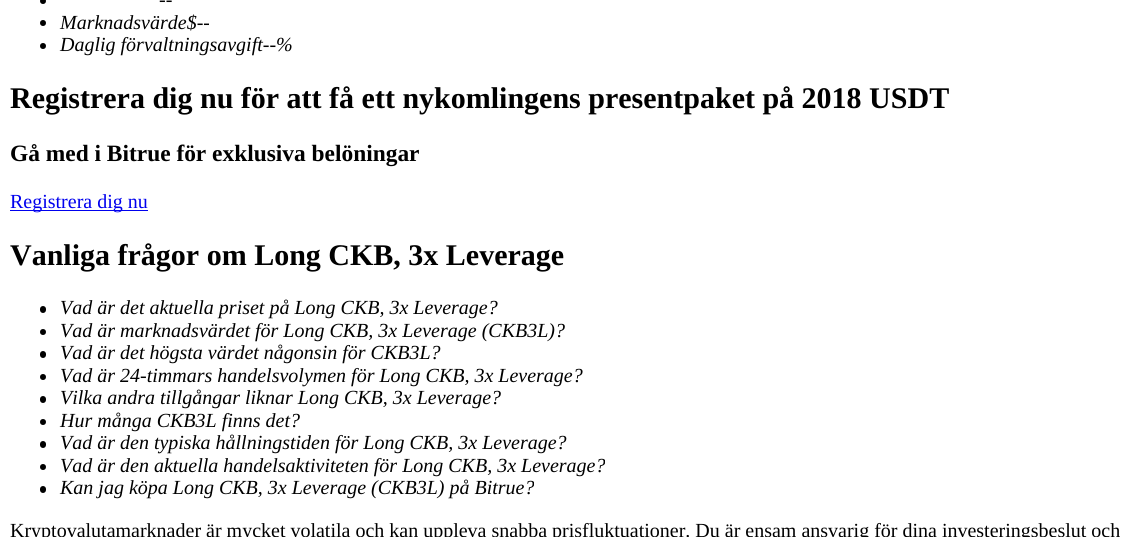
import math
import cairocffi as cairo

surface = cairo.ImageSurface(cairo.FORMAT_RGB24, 1136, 537)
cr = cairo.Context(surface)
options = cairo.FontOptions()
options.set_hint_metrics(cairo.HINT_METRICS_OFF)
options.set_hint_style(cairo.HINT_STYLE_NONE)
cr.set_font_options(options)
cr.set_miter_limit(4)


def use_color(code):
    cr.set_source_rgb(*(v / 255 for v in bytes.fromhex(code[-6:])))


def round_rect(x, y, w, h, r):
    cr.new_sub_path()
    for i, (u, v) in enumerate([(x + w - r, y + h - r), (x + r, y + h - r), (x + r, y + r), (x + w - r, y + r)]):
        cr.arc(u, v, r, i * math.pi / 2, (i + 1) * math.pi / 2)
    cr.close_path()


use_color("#ffffff")
cr.paint()
use_color("#000000")
cr.arc(43, 1, 3, 0, 2 * math.pi)
cr.fill()
cr.select_font_face("Liberation Serif", cairo.FONT_SLANT_ITALIC)
cr.set_font_size(20)
cr.move_to(159, 6)
cr.show_text("--")
cr.new_path()
cr.arc(43, 23, 3, 0, 2 * math.pi)
cr.fill()
cr.move_to(60, 29)
cr.show_text("Marknadsvärde$--")
cr.new_path()
cr.arc(43, 46, 3, 0, 2 * math.pi)
cr.fill()
cr.move_to(60, 51)
cr.show_text("Daglig förvaltningsavgift--%")
cr.select_font_face("Liberation Serif", cairo.FONT_SLANT_NORMAL, cairo.FONT_WEIGHT_BOLD)
cr.set_font_size(30)
cr.move_to(10, 108)
cr.show_text("Registrera dig nu för att få ett nykomlingens presentpaket på 2018 USDT")
cr.set_font_size(23.4)
cr.move_to(10, 161)
cr.show_text("Gå med i Bitrue för exklusiva belöningar")
use_color("#0000ee")
cr.rectangle(10, 210, 138, 1)
cr.fill()
cr.select_font_face("Liberation Serif")
cr.set_font_size(20)
cr.move_to(10, 208)
cr.show_text("Registrera dig nu")
cr.select_font_face("Liberation Serif", cairo.FONT_SLANT_NORMAL, cairo.FONT_WEIGHT_BOLD)
cr.set_font_size(30)
use_color("#000000")
cr.move_to(10, 265)
cr.show_text("Vanliga frågor om Long CKB, 3x Leverage")
round_rect(40, 306, 6, 7, 3)
cr.fill()
cr.select_font_face("Liberation Serif", cairo.FONT_SLANT_ITALIC)
cr.set_font_size(20)
cr.move_to(60, 314)
cr.show_text("Vad är det aktuella priset på Long CKB, 3x Leverage?")
cr.new_path()
cr.arc(43, 332, 3, 0, 2 * math.pi)
cr.fill()
cr.move_to(60, 337)
cr.show_text("Vad är marknadsvärdet för Long CKB, 3x Leverage (CKB3L)?")
round_rect(40, 351, 6, 7, 3)
cr.fill()
cr.move_to(60, 359)
cr.show_text("Vad är det högsta värdet någonsin för CKB3L?")
cr.new_path()
cr.arc(43, 377, 3, 0, 2 * math.pi)
cr.fill()
cr.move_to(60, 382)
cr.show_text("Vad är 24-timmars handelsvolymen för Long CKB, 3x Leverage?")
round_rect(40, 396, 6, 7, 3)
cr.fill()
cr.move_to(60, 404)
cr.show_text("Vilka andra tillgångar liknar Long CKB, 3x Leverage?")
cr.new_path()
cr.arc(43, 422, 3, 0, 2 * math.pi)
cr.fill()
cr.move_to(60, 427)
cr.show_text("Hur många CKB3L finns det?")
round_rect(40, 441, 6, 7, 3)
cr.fill()
cr.move_to(60, 449)
cr.show_text("Vad är den typiska hållningstiden för Long CKB, 3x Leverage?")
cr.new_path()
cr.arc(43, 467, 3, 0, 2 * math.pi)
cr.fill()
cr.move_to(60, 472)
cr.show_text("Vad är den aktuella handelsaktiviteten för Long CKB, 3x Leverage?")
round_rect(40, 486, 6, 7, 3)
cr.fill()
cr.move_to(60, 494)
cr.show_text("Kan jag köpa Long CKB, 3x Leverage (CKB3L) på Bitrue?")
cr.select_font_face("Liberation Serif")
cr.move_to(10, 537)
cr.show_text("Kryptovalutamarknader är mycket volatila och kan uppleva snabba prisfluktuationer. Du är ensam ansvarig för dina investeringsbeslut och")
surface.write_to_png("result.png")
